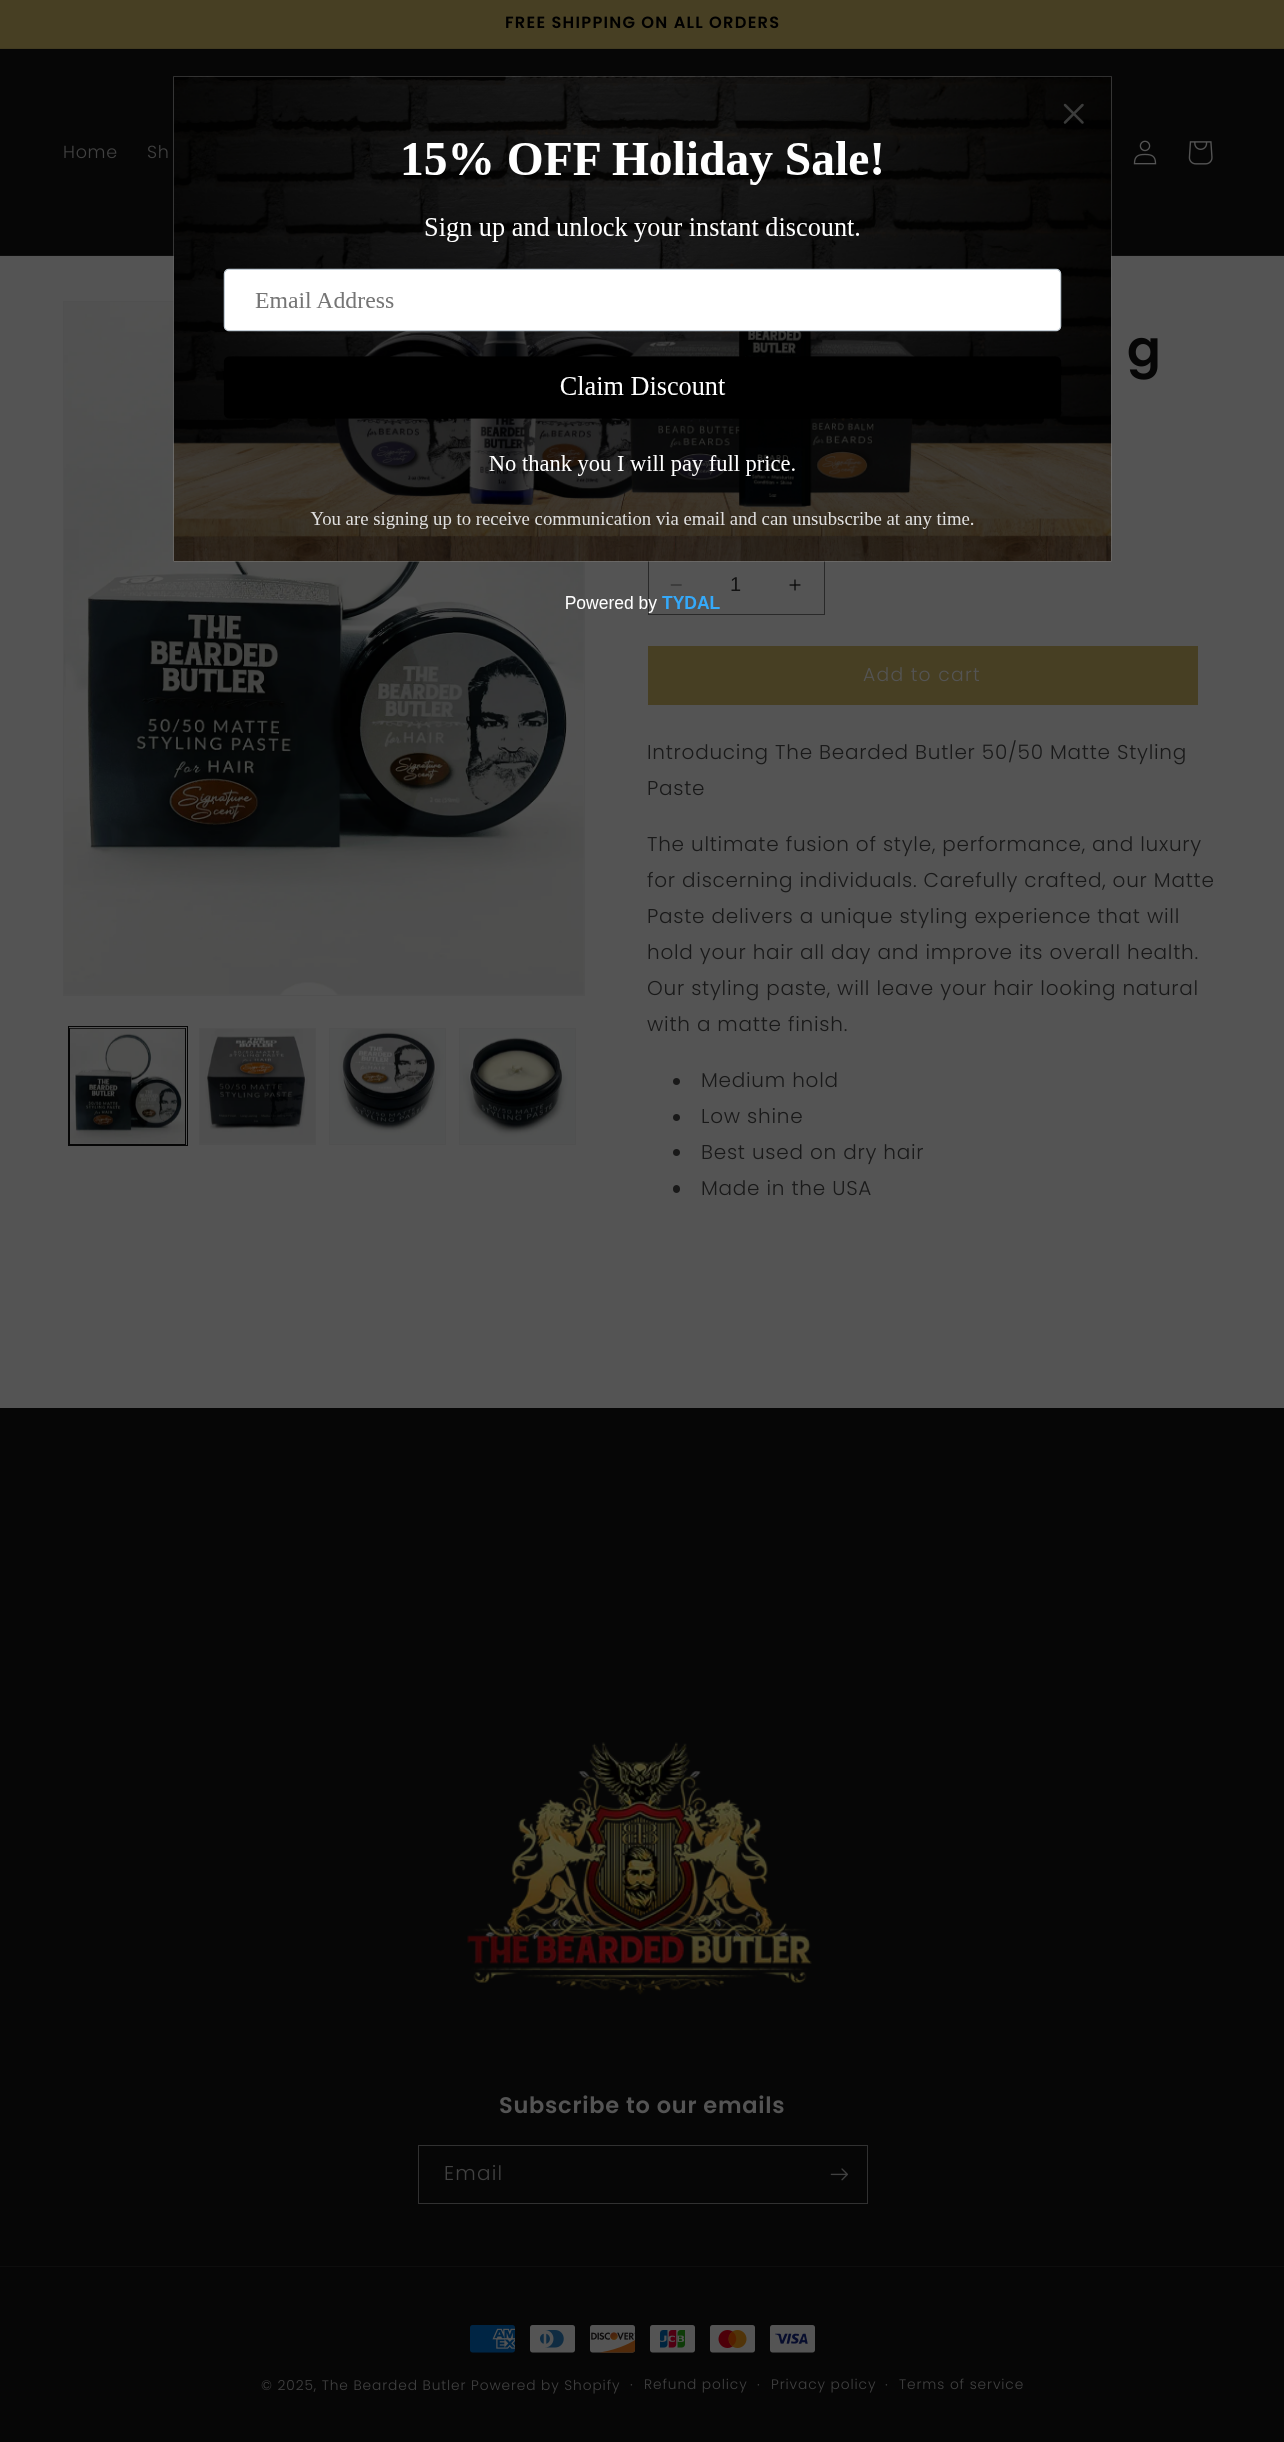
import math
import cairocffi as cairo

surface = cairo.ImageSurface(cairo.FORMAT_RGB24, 1284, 2442)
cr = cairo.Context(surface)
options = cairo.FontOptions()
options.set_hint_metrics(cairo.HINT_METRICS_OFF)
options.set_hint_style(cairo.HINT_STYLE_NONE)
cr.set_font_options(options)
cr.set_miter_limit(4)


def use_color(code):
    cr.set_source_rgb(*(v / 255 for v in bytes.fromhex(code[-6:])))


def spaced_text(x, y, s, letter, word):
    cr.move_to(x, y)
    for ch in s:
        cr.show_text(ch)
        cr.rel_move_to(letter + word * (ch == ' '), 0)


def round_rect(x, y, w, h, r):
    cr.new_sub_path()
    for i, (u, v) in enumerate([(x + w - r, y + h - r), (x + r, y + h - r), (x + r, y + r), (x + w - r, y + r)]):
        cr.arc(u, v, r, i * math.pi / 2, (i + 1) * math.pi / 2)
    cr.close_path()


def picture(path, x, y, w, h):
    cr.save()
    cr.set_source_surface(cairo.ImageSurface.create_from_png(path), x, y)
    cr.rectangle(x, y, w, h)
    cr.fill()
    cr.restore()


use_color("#131313")
cr.paint()
use_color("#d7be69")
cr.rectangle(0, 0, 1284, 48)
cr.fill()
use_color("#c6af61")
cr.rectangle(0, 48, 1284, 1)
cr.fill()
cr.select_font_face("Poppins SemiBold")
cr.set_font_size(16.25)
use_color("#000000")
spaced_text(505, 28, "FREE SHIPPING ON ALL ORDERS", 1.25, 0)
use_color("#262626")
cr.rectangle(0, 255, 1284, 1)
cr.fill()
cr.select_font_face("Poppins Light")
cr.set_font_size(17.5)
use_color("#c4c4c4")
spaced_text(63, 158, "Home", 0.75, 0)
spaced_text(147, 158, "Sh", 0.75, 0)
picture("img2.png", 1133, 140, 24, 25)
picture("img3.png", 1188, 141, 25, 24)
use_color("#ffffff")
cr.rectangle(0, 256, 1284, 1152)
cr.fill()
cr.rectangle(63.5, 301.5, 521, 694)
use_color("#f3f3f3")
cr.set_line_width(1)
cr.stroke()
picture("img4.png", 64, 302, 520, 693)
cr.rectangle(68.5, 1026.5, 119, 119)
use_color("#121212")
cr.stroke()
cr.rectangle(69.5, 1028.5, 116, 116)
cr.stroke()
picture("img5.png", 70, 1028, 115, 116)
cr.rectangle(199.5, 1028.5, 116, 116)
use_color("#f3f3f3")
cr.stroke()
picture("img6.png", 200, 1029, 115, 115)
cr.rectangle(329.5, 1028.5, 116, 116)
cr.stroke()
picture("img7.png", 330, 1029, 115, 115)
cr.rectangle(459.5, 1028.5, 116, 116)
cr.stroke()
picture("img8.png", 460, 1029, 115, 115)
cr.select_font_face("Poppins SemiBold")
cr.set_font_size(50)
use_color("#121212")
spaced_text(1127, 366, "g", 0.75, 0)
picture("img9.png", 670, 584, 12, 2)
picture("img10.png", 789, 579, 12, 12)
cr.rectangle(648.5, 556.5, 176, 58)
use_color("#7d7d7d")
cr.stroke()
cr.select_font_face("Liberation Sans")
cr.set_font_size(20)
use_color("#363636")
cr.move_to(730, 591)
cr.show_text("1")
use_color("#d7be69")
cr.rectangle(648, 646, 550, 59)
cr.fill()
cr.select_font_face("Poppins Light")
cr.set_font_size(18.75)
use_color("#ffffff")
spaced_text(863, 681, "Add to cart", 1.25, 0)
cr.set_font_size(20)
use_color("#4d4d4d")
spaced_text(647, 759, "Introducing The Bearded Butler 50/50 Matte Styling", 0.75, 0)
spaced_text(647, 795, "Paste", 0.75, 0)
spaced_text(647, 851, "The ultimate fusion of style, performance, and luxury", 0.75, 0)
spaced_text(647, 887, "for discerning individuals. Carefully crafted, our Matte", 0.75, 0)
spaced_text(647, 923, "Paste delivers a unique styling experience that will", 0.75, 0)
spaced_text(647, 959, "hold your hair all day and improve its overall health.", 0.75, 0)
spaced_text(647, 995, "Our styling paste, will leave your hair looking natural", 0.75, 0)
spaced_text(647, 1031, "with a matte finish.", 0.75, 0)
cr.new_path()
cr.arc(676.5, 1081.5, 3.5, 0, 2 * math.pi)
cr.fill()
spaced_text(701, 1087, "Medium hold", 0.75, 0)
cr.new_path()
cr.arc(676.5, 1117.5, 3.5, 0, 2 * math.pi)
cr.fill()
spaced_text(701, 1123, "Low shine", 0.75, 0)
cr.new_path()
cr.arc(676.5, 1152.5, 3.5, 0, 2 * math.pi)
cr.fill()
spaced_text(701, 1159, "Best used on dry hair", 0.75, 0)
round_rect(673, 1185, 7, 8, 3.5)
cr.fill()
spaced_text(701, 1195, "Made in the USA", 0.75, 0)
picture("img11.png", 467, 1742, 345, 253)
cr.select_font_face("Poppins SemiBold")
cr.set_font_size(22.5)
use_color("#ffffff")
spaced_text(499, 2113, "Subscribe to our emails", 0.75, 0)
cr.rectangle(418.5, 2145.5, 449, 58)
use_color("#959595")
cr.stroke()
cr.select_font_face("Poppins Light")
cr.set_font_size(20)
use_color("#c4c4c4")
spaced_text(444, 2180, "Email", 1.25, 0)
picture("img12.png", 830, 2168, 18, 13)
use_color("#262626")
cr.rectangle(0, 2266, 1284, 1)
cr.fill()
picture("img13.png", 470, 2325, 45, 28)
picture("img14.png", 530, 2325, 45, 28)
picture("img15.png", 590, 2325, 46, 28)
picture("img16.png", 650, 2325, 45, 28)
picture("img17.png", 710, 2325, 45, 28)
picture("img18.png", 770, 2325, 45, 28)
cr.set_font_size(13.75)
use_color("#c4c4c4")
spaced_text(261, 2390, "© 2025, The Bearded Butler", 0.9, 0)
spaced_text(471, 2390, "Powered by Shopify", 0.9, 0)
cr.set_font_size(15)
spaced_text(630, 2390, "·", 0.9, 0)
cr.set_font_size(13.75)
spaced_text(644, 2389, "Refund policy", 0.9, 0)
cr.set_font_size(15)
spaced_text(757, 2390, "·", 0.9, 0)
cr.set_font_size(13.75)
spaced_text(771, 2389, "Privacy policy", 0.9, 0)
cr.set_font_size(15)
spaced_text(885, 2390, "·", 0.9, 0)
cr.set_font_size(13.75)
spaced_text(899, 2389, "Terms of service", 0.9, 0)
picture("img1.png", 0, 0, 1284, 2442)
surface.write_to_png("result.png")
